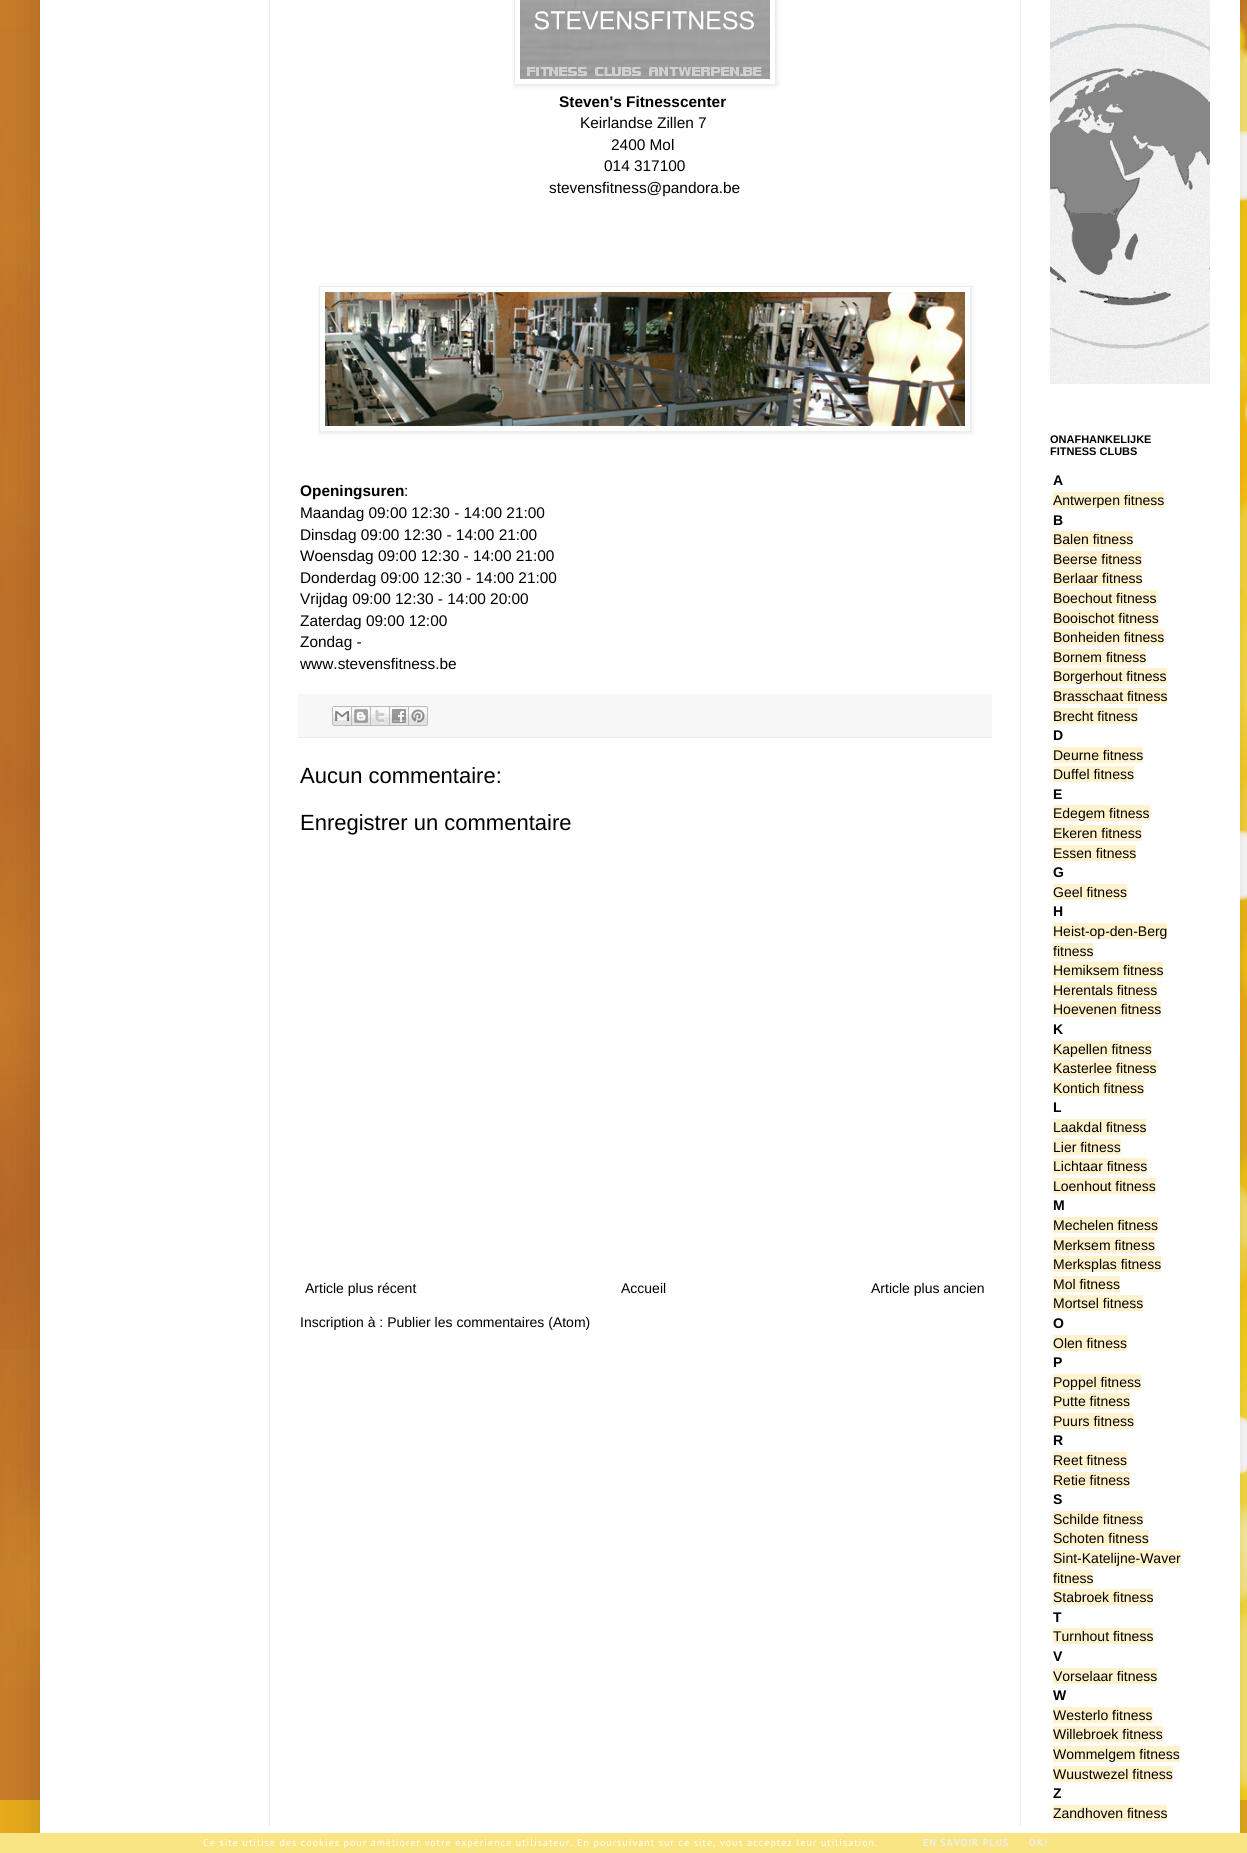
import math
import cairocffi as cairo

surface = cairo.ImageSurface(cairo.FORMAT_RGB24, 1247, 1853)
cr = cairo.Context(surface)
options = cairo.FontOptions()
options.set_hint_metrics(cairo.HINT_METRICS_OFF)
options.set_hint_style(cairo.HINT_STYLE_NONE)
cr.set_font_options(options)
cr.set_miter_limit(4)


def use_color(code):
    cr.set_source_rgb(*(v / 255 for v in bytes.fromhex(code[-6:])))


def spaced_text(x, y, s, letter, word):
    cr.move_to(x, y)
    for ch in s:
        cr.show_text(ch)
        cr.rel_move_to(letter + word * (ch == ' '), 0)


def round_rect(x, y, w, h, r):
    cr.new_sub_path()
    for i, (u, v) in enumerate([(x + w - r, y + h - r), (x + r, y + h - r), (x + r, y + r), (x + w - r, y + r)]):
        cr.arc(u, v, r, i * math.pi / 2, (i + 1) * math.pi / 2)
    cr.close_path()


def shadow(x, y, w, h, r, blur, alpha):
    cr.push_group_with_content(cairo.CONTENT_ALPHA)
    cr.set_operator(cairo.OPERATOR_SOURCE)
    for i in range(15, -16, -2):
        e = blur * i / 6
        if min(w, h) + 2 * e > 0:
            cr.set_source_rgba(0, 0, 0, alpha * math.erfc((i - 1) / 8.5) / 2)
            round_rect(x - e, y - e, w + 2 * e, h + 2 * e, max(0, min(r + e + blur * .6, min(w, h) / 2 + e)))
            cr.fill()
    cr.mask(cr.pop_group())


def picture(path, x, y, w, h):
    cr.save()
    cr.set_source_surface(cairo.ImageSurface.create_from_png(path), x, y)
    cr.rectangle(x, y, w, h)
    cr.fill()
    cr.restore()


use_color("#e7aa1c")
cr.paint()
picture("img1.png", 0, 0, 1247, 1800)
use_color("#000000")
shadow(40, -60, 1200, 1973, 0, 20, 0.15)
use_color("#ffffff")
cr.rectangle(40, 0, 1200, 1833)
cr.fill()
use_color("#ececec")
cr.rectangle(269, 0, 1, 1826)
cr.fill()
cr.rectangle(1020, 0, 1, 1826)
cr.fill()
cr.save()
cr.set_fill_rule(cairo.FILL_RULE_EVEN_ODD)
cr.new_path()
cr.move_to(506, 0)
cr.line_to(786, 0)
cr.line_to(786, 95)
cr.line_to(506, 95)
cr.close_path()
cr.move_to(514, -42)
cr.line_to(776, -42)
cr.line_to(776, 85)
cr.line_to(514, 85)
cr.close_path()
cr.clip()
use_color("#000000")
shadow(515, -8, 262, 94, 0, 2.5, 0.1)
cr.restore()
cr.rectangle(514.5, -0.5, 261, 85)
cr.set_line_width(1)
cr.stroke()
picture("img2.png", 520, 0, 250, 79)
cr.select_font_face("Liberation Sans", cairo.FONT_SLANT_NORMAL, cairo.FONT_WEIGHT_BOLD)
cr.set_font_size(15.4)
use_color("#000000")
cr.move_to(559, 107)
cr.show_text("Steven's Fitnesscenter")
cr.select_font_face("Liberation Sans")
cr.move_to(580, 128)
cr.show_text("Keirlandse Zillen 7")
cr.move_to(611, 150)
cr.show_text("2400 Mol")
cr.move_to(604, 171)
cr.show_text("014 317100")
cr.move_to(549, 193)
cr.show_text("stevensfitness@pandora.be")
cr.save()
cr.set_fill_rule(cairo.FILL_RULE_EVEN_ODD)
cr.new_path()
cr.move_to(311, 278)
cr.line_to(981, 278)
cr.line_to(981, 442)
cr.line_to(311, 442)
cr.close_path()
cr.move_to(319, 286)
cr.line_to(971, 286)
cr.line_to(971, 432)
cr.line_to(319, 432)
cr.close_path()
cr.clip()
use_color("#000000")
shadow(320, 287, 652, 146, 0, 2.5, 0.1)
cr.restore()
cr.rectangle(319.5, 286.5, 651, 145)
use_color("#ececec")
cr.stroke()
picture("img3.png", 325, 292, 640, 134)
cr.select_font_face("Liberation Sans", cairo.FONT_SLANT_NORMAL, cairo.FONT_WEIGHT_BOLD)
use_color("#000000")
cr.move_to(300, 496)
cr.show_text("Openingsuren")
cr.select_font_face("Liberation Sans")
cr.move_to(404, 496)
cr.show_text(":")
cr.move_to(300, 518)
cr.show_text("Maandag 09:00 12:30 - 14:00 21:00")
cr.move_to(300, 540)
cr.show_text("Dinsdag 09:00 12:30 - 14:00 21:00")
cr.move_to(300, 561)
cr.show_text("Woensdag 09:00 12:30 - 14:00 21:00")
cr.move_to(300, 583)
cr.show_text("Donderdag 09:00 12:30 - 14:00 21:00")
cr.move_to(300, 604)
cr.show_text("Vrijdag 09:00 12:30 - 14:00 20:00")
cr.move_to(300, 626)
cr.show_text("Zaterdag 09:00 12:00")
cr.move_to(300, 647)
cr.show_text("Zondag -")
cr.move_to(300, 669)
cr.show_text("www.stevensfitness.be")
use_color("#f7f7f7")
cr.rectangle(298, 694, 694, 43)
cr.fill()
use_color("#ececec")
cr.rectangle(298, 737, 694, 1)
cr.fill()
picture("img4.png", 332, 706, 20, 20)
picture("img5.png", 352, 706, 19, 20)
picture("img6.png", 371, 706, 19, 20)
picture("img7.png", 390, 706, 19, 20)
picture("img8.png", 409, 706, 19, 20)
cr.set_font_size(22)
use_color("#000000")
cr.move_to(300, 783)
cr.show_text("Aucun commentaire:")
cr.move_to(300, 830)
cr.show_text("Enregistrer un commentaire")
cr.set_font_size(14)
cr.move_to(305, 1293)
cr.show_text("Article plus récent")
cr.move_to(621, 1293)
cr.show_text("Accueil")
cr.move_to(871, 1293)
cr.show_text("Article plus ancien")
cr.move_to(300, 1327)
cr.show_text("Inscription à : Publier les commentaires (Atom)")
picture("img9.png", 1050, 0, 160, 384)
cr.select_font_face("Liberation Sans", cairo.FONT_SLANT_NORMAL, cairo.FONT_WEIGHT_BOLD)
cr.set_font_size(11)
cr.move_to(1050, 443)
cr.show_text("ONAFHANKELIJKE")
cr.move_to(1050, 455)
cr.show_text("FITNESS CLUBS")
cr.set_font_size(14)
cr.move_to(1053, 485)
cr.show_text("A")
use_color("#fff2cc")
cr.rectangle(1053, 492, 111, 16)
cr.fill()
cr.select_font_face("Liberation Sans")
use_color("#000000")
cr.move_to(1053, 505)
cr.show_text("Antwerpen fitness")
cr.select_font_face("Liberation Sans", cairo.FONT_SLANT_NORMAL, cairo.FONT_WEIGHT_BOLD)
cr.move_to(1053, 525)
cr.show_text("B")
use_color("#fff2cc")
cr.rectangle(1053, 531, 80, 16)
cr.fill()
cr.select_font_face("Liberation Sans")
use_color("#000000")
cr.move_to(1053, 544)
cr.show_text("Balen fitness")
use_color("#fff2cc")
cr.rectangle(1053, 551, 89, 16)
cr.fill()
use_color("#000000")
cr.move_to(1053, 564)
cr.show_text("Beerse fitness")
use_color("#fff2cc")
cr.rectangle(1053, 570, 89, 16)
cr.fill()
use_color("#000000")
cr.move_to(1053, 583)
cr.show_text("Berlaar fitness")
use_color("#fff2cc")
cr.rectangle(1053, 590, 104, 16)
cr.fill()
use_color("#000000")
cr.move_to(1053, 603)
cr.show_text("Boechout fitness")
use_color("#fff2cc")
cr.rectangle(1053, 610, 106, 16)
cr.fill()
use_color("#000000")
cr.move_to(1053, 623)
cr.show_text("Booischot fitness")
use_color("#fff2cc")
cr.rectangle(1053, 629, 111, 16)
cr.fill()
use_color("#000000")
cr.move_to(1053, 642)
cr.show_text("Bonheiden fitness")
use_color("#fff2cc")
cr.rectangle(1053, 649, 93, 16)
cr.fill()
use_color("#000000")
cr.move_to(1053, 662)
cr.show_text("Bornem fitness")
use_color("#fff2cc")
cr.rectangle(1053, 668, 114, 16)
cr.fill()
use_color("#000000")
cr.move_to(1053, 681)
cr.show_text("Borgerhout fitness")
use_color("#fff2cc")
cr.rectangle(1053, 688, 114, 16)
cr.fill()
use_color("#000000")
cr.move_to(1053, 701)
cr.show_text("Brasschaat fitness")
use_color("#fff2cc")
cr.rectangle(1053, 708, 85, 16)
cr.fill()
use_color("#000000")
cr.move_to(1053, 721)
cr.show_text("Brecht fitness")
cr.select_font_face("Liberation Sans", cairo.FONT_SLANT_NORMAL, cairo.FONT_WEIGHT_BOLD)
cr.move_to(1053, 740)
cr.show_text("D")
use_color("#fff2cc")
cr.rectangle(1053, 747, 90, 16)
cr.fill()
cr.select_font_face("Liberation Sans")
use_color("#000000")
cr.move_to(1053, 760)
cr.show_text("Deurne fitness")
use_color("#fff2cc")
cr.rectangle(1053, 766, 81, 16)
cr.fill()
use_color("#000000")
cr.move_to(1053, 779)
cr.show_text("Duffel fitness")
cr.select_font_face("Liberation Sans", cairo.FONT_SLANT_NORMAL, cairo.FONT_WEIGHT_BOLD)
cr.move_to(1053, 799)
cr.show_text("E")
use_color("#fff2cc")
cr.rectangle(1053, 805, 97, 16)
cr.fill()
cr.select_font_face("Liberation Sans")
use_color("#000000")
cr.move_to(1053, 818)
cr.show_text("Edegem fitness")
use_color("#fff2cc")
cr.rectangle(1053, 825, 89, 16)
cr.fill()
use_color("#000000")
cr.move_to(1053, 838)
cr.show_text("Ekeren fitness")
use_color("#fff2cc")
cr.rectangle(1053, 845, 83, 16)
cr.fill()
use_color("#000000")
cr.move_to(1053, 858)
cr.show_text("Essen fitness")
cr.select_font_face("Liberation Sans", cairo.FONT_SLANT_NORMAL, cairo.FONT_WEIGHT_BOLD)
cr.move_to(1053, 877)
cr.show_text("G")
use_color("#fff2cc")
cr.rectangle(1053, 884, 74, 16)
cr.fill()
cr.select_font_face("Liberation Sans")
use_color("#000000")
cr.move_to(1053, 897)
cr.show_text("Geel fitness")
cr.select_font_face("Liberation Sans", cairo.FONT_SLANT_NORMAL, cairo.FONT_WEIGHT_BOLD)
cr.move_to(1053, 916)
cr.show_text("H")
use_color("#fff2cc")
cr.rectangle(1053, 923, 114, 16)
cr.fill()
cr.select_font_face("Liberation Sans")
use_color("#000000")
cr.move_to(1053, 936)
cr.show_text("Heist-op-den-Berg")
use_color("#fff2cc")
cr.rectangle(1053, 943, 40, 16)
cr.fill()
use_color("#000000")
cr.move_to(1053, 956)
cr.show_text("fitness")
use_color("#fff2cc")
cr.rectangle(1053, 962, 110, 16)
cr.fill()
use_color("#000000")
cr.move_to(1053, 975)
cr.show_text("Hemiksem fitness")
use_color("#fff2cc")
cr.rectangle(1053, 982, 104, 16)
cr.fill()
use_color("#000000")
cr.move_to(1053, 995)
cr.show_text("Herentals fitness")
use_color("#fff2cc")
cr.rectangle(1053, 1001, 108, 16)
cr.fill()
use_color("#000000")
cr.move_to(1053, 1014)
cr.show_text("Hoevenen fitness")
cr.select_font_face("Liberation Sans", cairo.FONT_SLANT_NORMAL, cairo.FONT_WEIGHT_BOLD)
cr.move_to(1053, 1034)
cr.show_text("K")
use_color("#fff2cc")
cr.rectangle(1053, 1041, 99, 16)
cr.fill()
cr.select_font_face("Liberation Sans")
use_color("#000000")
cr.move_to(1053, 1054)
cr.show_text("Kapellen fitness")
use_color("#fff2cc")
cr.rectangle(1053, 1060, 104, 16)
cr.fill()
use_color("#000000")
cr.move_to(1053, 1073)
cr.show_text("Kasterlee fitness")
use_color("#fff2cc")
cr.rectangle(1053, 1080, 91, 16)
cr.fill()
use_color("#000000")
cr.move_to(1053, 1093)
cr.show_text("Kontich fitness")
cr.select_font_face("Liberation Sans", cairo.FONT_SLANT_NORMAL, cairo.FONT_WEIGHT_BOLD)
cr.move_to(1053, 1112)
cr.show_text("L")
use_color("#fff2cc")
cr.rectangle(1053, 1119, 93, 16)
cr.fill()
cr.select_font_face("Liberation Sans")
use_color("#000000")
cr.move_to(1053, 1132)
cr.show_text("Laakdal fitness")
use_color("#fff2cc")
cr.rectangle(1053, 1139, 68, 16)
cr.fill()
use_color("#000000")
cr.move_to(1053, 1152)
cr.show_text("Lier fitness")
use_color("#fff2cc")
cr.rectangle(1053, 1158, 94, 16)
cr.fill()
use_color("#000000")
cr.move_to(1053, 1171)
cr.show_text("Lichtaar fitness")
use_color("#fff2cc")
cr.rectangle(1053, 1178, 103, 16)
cr.fill()
use_color("#000000")
cr.move_to(1053, 1191)
cr.show_text("Loenhout fitness")
cr.select_font_face("Liberation Sans", cairo.FONT_SLANT_NORMAL, cairo.FONT_WEIGHT_BOLD)
cr.move_to(1053, 1210)
cr.show_text("M")
use_color("#fff2cc")
cr.rectangle(1053, 1217, 105, 16)
cr.fill()
cr.select_font_face("Liberation Sans")
use_color("#000000")
cr.move_to(1053, 1230)
cr.show_text("Mechelen fitness")
use_color("#fff2cc")
cr.rectangle(1053, 1237, 102, 16)
cr.fill()
use_color("#000000")
cr.move_to(1053, 1250)
cr.show_text("Merksem fitness")
use_color("#fff2cc")
cr.rectangle(1053, 1256, 108, 16)
cr.fill()
use_color("#000000")
cr.move_to(1053, 1269)
cr.show_text("Merksplas fitness")
use_color("#fff2cc")
cr.rectangle(1053, 1276, 67, 16)
cr.fill()
use_color("#000000")
cr.move_to(1053, 1289)
cr.show_text("Mol fitness")
use_color("#fff2cc")
cr.rectangle(1053, 1295, 90, 16)
cr.fill()
use_color("#000000")
cr.move_to(1053, 1308)
cr.show_text("Mortsel fitness")
cr.select_font_face("Liberation Sans", cairo.FONT_SLANT_NORMAL, cairo.FONT_WEIGHT_BOLD)
cr.move_to(1053, 1328)
cr.show_text("O")
use_color("#fff2cc")
cr.rectangle(1053, 1335, 74, 16)
cr.fill()
cr.select_font_face("Liberation Sans")
use_color("#000000")
cr.move_to(1053, 1348)
cr.show_text("Olen fitness")
cr.select_font_face("Liberation Sans", cairo.FONT_SLANT_NORMAL, cairo.FONT_WEIGHT_BOLD)
cr.move_to(1053, 1367)
cr.show_text("P")
use_color("#fff2cc")
cr.rectangle(1053, 1374, 88, 16)
cr.fill()
cr.select_font_face("Liberation Sans")
use_color("#000000")
cr.move_to(1053, 1387)
cr.show_text("Poppel fitness")
use_color("#fff2cc")
cr.rectangle(1053, 1393, 77, 16)
cr.fill()
use_color("#000000")
cr.move_to(1053, 1406)
cr.show_text("Putte fitness")
use_color("#fff2cc")
cr.rectangle(1053, 1413, 81, 16)
cr.fill()
use_color("#000000")
cr.move_to(1053, 1426)
cr.show_text("Puurs fitness")
cr.select_font_face("Liberation Sans", cairo.FONT_SLANT_NORMAL, cairo.FONT_WEIGHT_BOLD)
cr.move_to(1053, 1445)
cr.show_text("R")
use_color("#fff2cc")
cr.rectangle(1053, 1452, 74, 16)
cr.fill()
cr.select_font_face("Liberation Sans")
use_color("#000000")
cr.move_to(1053, 1465)
cr.show_text("Reet fitness")
use_color("#fff2cc")
cr.rectangle(1053, 1472, 77, 16)
cr.fill()
use_color("#000000")
cr.move_to(1053, 1485)
cr.show_text("Retie fitness")
cr.select_font_face("Liberation Sans", cairo.FONT_SLANT_NORMAL, cairo.FONT_WEIGHT_BOLD)
cr.move_to(1053, 1504)
cr.show_text("S")
use_color("#fff2cc")
cr.rectangle(1053, 1511, 90, 16)
cr.fill()
cr.select_font_face("Liberation Sans")
use_color("#000000")
cr.move_to(1053, 1524)
cr.show_text("Schilde fitness")
use_color("#fff2cc")
cr.rectangle(1053, 1530, 96, 16)
cr.fill()
use_color("#000000")
cr.move_to(1053, 1543)
cr.show_text("Schoten fitness")
use_color("#fff2cc")
cr.rectangle(1053, 1550, 128, 16)
cr.fill()
use_color("#000000")
cr.move_to(1053, 1563)
cr.show_text("Sint-Katelijne-Waver")
use_color("#fff2cc")
cr.rectangle(1053, 1570, 40, 16)
cr.fill()
use_color("#000000")
cr.move_to(1053, 1583)
cr.show_text("fitness")
use_color("#fff2cc")
cr.rectangle(1053, 1589, 100, 16)
cr.fill()
use_color("#000000")
cr.move_to(1053, 1602)
cr.show_text("Stabroek fitness")
cr.select_font_face("Liberation Sans", cairo.FONT_SLANT_NORMAL, cairo.FONT_WEIGHT_BOLD)
cr.move_to(1053, 1622)
cr.show_text("T")
use_color("#fff2cc")
cr.rectangle(1053, 1628, 100, 16)
cr.fill()
cr.select_font_face("Liberation Sans")
use_color("#000000")
cr.move_to(1053, 1641)
cr.show_text("Turnhout fitness")
cr.select_font_face("Liberation Sans", cairo.FONT_SLANT_NORMAL, cairo.FONT_WEIGHT_BOLD)
cr.move_to(1053, 1661)
cr.show_text("V")
use_color("#fff2cc")
cr.rectangle(1053, 1668, 104, 16)
cr.fill()
cr.select_font_face("Liberation Sans")
use_color("#000000")
cr.move_to(1053, 1681)
cr.show_text("Vorselaar fitness")
cr.select_font_face("Liberation Sans", cairo.FONT_SLANT_NORMAL, cairo.FONT_WEIGHT_BOLD)
cr.move_to(1053, 1700)
cr.show_text("W")
use_color("#fff2cc")
cr.rectangle(1053, 1707, 100, 16)
cr.fill()
cr.select_font_face("Liberation Sans")
use_color("#000000")
cr.move_to(1053, 1720)
cr.show_text("Westerlo fitness")
use_color("#fff2cc")
cr.rectangle(1053, 1726, 110, 16)
cr.fill()
use_color("#000000")
cr.move_to(1053, 1739)
cr.show_text("Willebroek fitness")
use_color("#fff2cc")
cr.rectangle(1053, 1746, 127, 16)
cr.fill()
use_color("#000000")
cr.move_to(1053, 1759)
cr.show_text("Wommelgem fitness")
use_color("#fff2cc")
cr.rectangle(1053, 1766, 120, 16)
cr.fill()
use_color("#000000")
cr.move_to(1053, 1779)
cr.show_text("Wuustwezel fitness")
cr.select_font_face("Liberation Sans", cairo.FONT_SLANT_NORMAL, cairo.FONT_WEIGHT_BOLD)
cr.move_to(1053, 1798)
cr.show_text("Z")
use_color("#fff2cc")
cr.rectangle(1053, 1805, 114, 16)
cr.fill()
cr.select_font_face("Liberation Sans")
use_color("#000000")
cr.move_to(1053, 1818)
cr.show_text("Zandhoven fitness")
use_color("#f9e584")
cr.rectangle(0, 1833, 1247, 20)
cr.fill()
cr.select_font_face("PT Sans")
cr.set_font_size(10)
use_color("#ffffff")
spaced_text(203, 1846, "Ce site utilise des cookies pour améliorer votre expérience utilisateur. En poursuivant sur ce site, vous acceptez leur utilisation.", 1, 0)
cr.select_font_face("PT Sans", cairo.FONT_SLANT_NORMAL, cairo.FONT_WEIGHT_BOLD)
use_color("#eeeeee")
spaced_text(923, 1846, "EN SAVOIR PLUS", 1, 0)
spaced_text(1029, 1846, "OK!", 1, 0)
surface.write_to_png("result.png")
